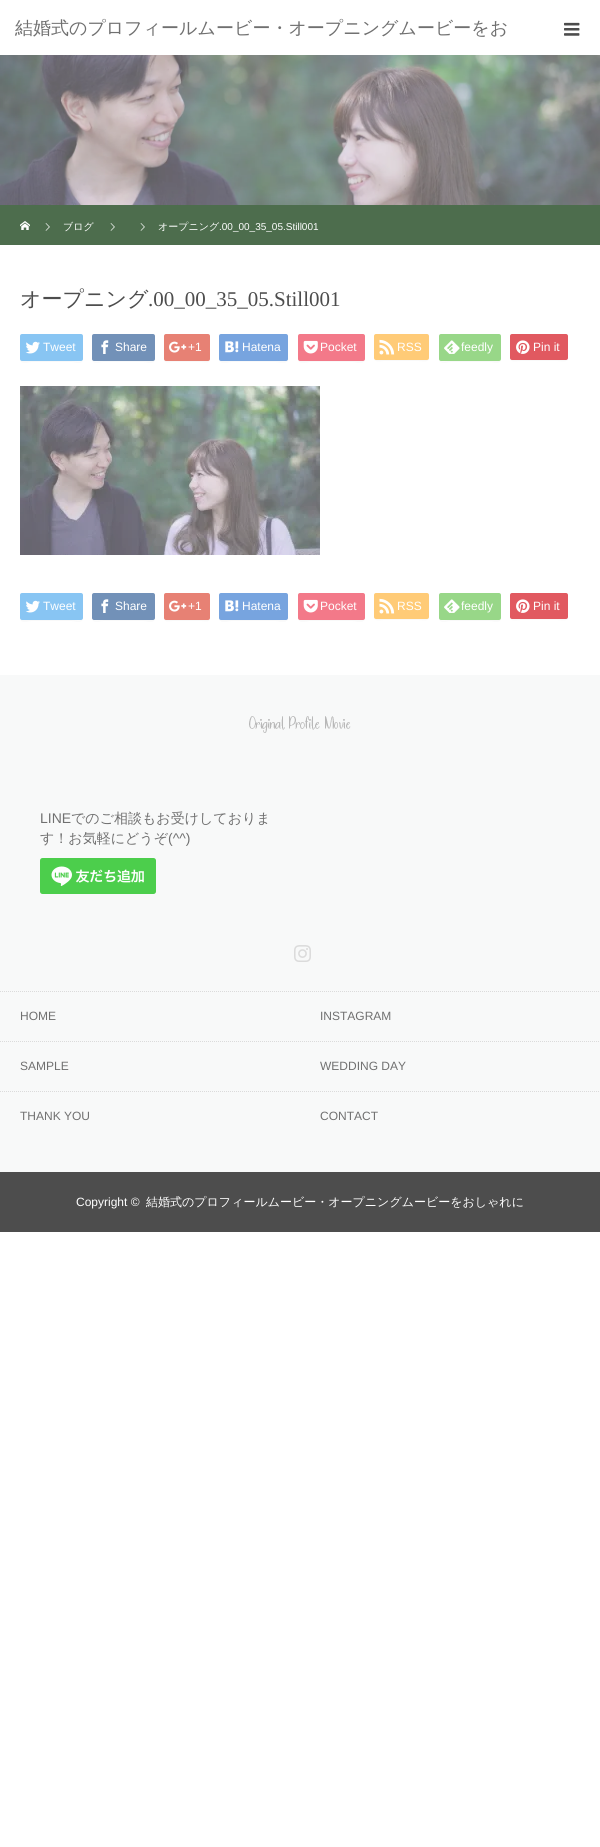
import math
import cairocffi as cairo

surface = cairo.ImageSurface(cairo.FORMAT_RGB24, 600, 1847)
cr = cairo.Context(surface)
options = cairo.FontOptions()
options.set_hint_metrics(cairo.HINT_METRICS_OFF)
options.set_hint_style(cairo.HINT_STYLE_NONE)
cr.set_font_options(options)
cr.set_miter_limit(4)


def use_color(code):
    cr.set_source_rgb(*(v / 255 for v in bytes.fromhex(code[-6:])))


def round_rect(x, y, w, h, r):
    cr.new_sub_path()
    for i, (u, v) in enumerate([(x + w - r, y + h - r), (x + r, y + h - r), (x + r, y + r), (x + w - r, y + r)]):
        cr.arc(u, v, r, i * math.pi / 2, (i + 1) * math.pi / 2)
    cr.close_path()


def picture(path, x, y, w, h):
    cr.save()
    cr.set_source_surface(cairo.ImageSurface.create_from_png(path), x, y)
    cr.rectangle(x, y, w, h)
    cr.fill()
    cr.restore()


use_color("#ffffff")
cr.paint()
cr.select_font_face("WenQuanYi Zen Hei Medium")
cr.set_font_size(18)
use_color("#707070")
cr.move_to(15, 34)
cr.show_text("結婚式のプロフィールムービー・オープニングムービーをお")
picture("img1.png", 564, 22, 16, 14)
picture("img2.png", 0, 55, 600, 150)
use_color("#4d6d4d")
cr.rectangle(0, 205, 600, 40)
cr.fill()
picture("img3.png", 20, 221, 10, 9)
picture("img4.png", 45, 223, 5, 8)
cr.set_font_size(10)
use_color("#ffffff")
cr.move_to(63, 230)
cr.show_text("ブログ")
picture("img4.png", 110, 223, 5, 8)
picture("img4.png", 140, 223, 5, 8)
cr.move_to(158, 230)
cr.show_text("オープニング")
cr.select_font_face("Liberation Sans")
cr.move_to(219, 230)
cr.show_text(".00_00_35_05.Still001")
cr.select_font_face("WenQuanYi Zen Hei Medium")
cr.set_font_size(21)
use_color("#4d4d4d")
cr.move_to(20, 306)
cr.show_text("オープニング")
cr.select_font_face("Liberation Serif")
cr.move_to(148, 306)
cr.show_text(".00_00_35_05.Still001")
use_color("#f9f9f9")
cr.new_path()
cr.move_to(20, 359)
cr.curve_to(20, 365, 28, 362, 32, 362)
cr.line_to(71, 362)
cr.curve_to(75, 362, 83, 365, 83, 359)
cr.curve_to(83, 363, 75, 361, 71, 361)
cr.line_to(21, 361)
cr.close_path()
cr.fill()
use_color("#88c5f3")
round_rect(20, 334, 63, 27, 2)
cr.fill()
picture("img5.png", 25, 341, 15, 13)
cr.select_font_face("Liberation Sans")
cr.set_font_size(12)
use_color("#ffffff")
cr.move_to(43, 351)
cr.show_text("Tweet")
use_color("#f9f9f9")
cr.new_path()
cr.move_to(92, 359)
cr.curve_to(92, 365, 100, 362, 104, 362)
cr.line_to(143, 362)
cr.curve_to(147, 362, 155, 365, 155, 359)
cr.line_to(154, 361)
cr.line_to(104, 361)
cr.curve_to(100, 361, 92, 363, 92, 359)
cr.close_path()
cr.fill()
use_color("#7291b8")
round_rect(92, 334, 63, 27, 2)
cr.fill()
picture("img6.png", 101, 340, 8, 14)
use_color("#ffffff")
cr.move_to(115, 351)
cr.show_text("Share")
use_color("#f9f9f9")
cr.new_path()
cr.move_to(164, 359)
cr.curve_to(164, 364, 169, 362, 173, 362)
cr.line_to(201, 362)
cr.curve_to(205, 362, 210, 364, 210, 359)
cr.curve_to(210, 360, 209, 361, 208, 361)
cr.line_to(166, 361)
cr.curve_to(165, 361, 164, 360, 164, 359)
cr.close_path()
cr.fill()
use_color("#e78174")
round_rect(164, 334, 46, 27, 2)
cr.fill()
picture("img7.png", 169, 341, 18, 12)
use_color("#ffffff")
cr.move_to(188, 351)
cr.show_text("+1")
use_color("#f9f9f9")
cr.new_path()
cr.move_to(219, 359)
cr.curve_to(219, 365, 228, 362, 232, 362)
cr.line_to(275, 362)
cr.curve_to(279, 362, 288, 365, 288, 359)
cr.curve_to(288, 360, 287, 361, 286, 361)
cr.line_to(220, 361)
cr.close_path()
cr.fill()
use_color("#77a4df")
round_rect(219, 334, 69, 27, 2)
cr.fill()
picture("img8.png", 225, 341, 14, 12)
use_color("#ffffff")
cr.move_to(242, 351)
cr.show_text("Hatena")
use_color("#f9f9f9")
cr.new_path()
cr.move_to(298, 359)
cr.curve_to(298, 365, 307, 362, 310, 362)
cr.line_to(352, 362)
cr.curve_to(356, 362, 365, 365, 365, 359)
cr.line_to(364, 361)
cr.line_to(300, 361)
cr.line_to(298, 360)
cr.close_path()
cr.fill()
use_color("#f37989")
round_rect(298, 334, 67, 27, 2)
cr.fill()
picture("img9.png", 303, 340, 15, 14)
use_color("#ffffff")
cr.move_to(320, 351)
cr.show_text("Pocket")
use_color("#f9f9f9")
cr.new_path()
cr.move_to(374, 358)
cr.curve_to(374, 363, 381, 361, 384, 361)
cr.line_to(418, 361)
cr.curve_to(422, 361, 429, 363, 429, 358)
cr.line_to(428, 360)
cr.line_to(375, 360)
cr.close_path()
cr.fill()
use_color("#ffcb77")
round_rect(374, 334, 55, 26, 2)
cr.fill()
picture("img10.png", 379, 339, 16, 16)
use_color("#ffffff")
cr.move_to(397, 351)
cr.show_text("RSS")
use_color("#f9f9f9")
cr.new_path()
cr.move_to(439, 359)
cr.curve_to(439, 365, 447, 362, 451, 362)
cr.line_to(489, 362)
cr.curve_to(493, 362, 501, 365, 501, 359)
cr.line_to(500, 361)
cr.line_to(451, 361)
cr.curve_to(447, 361, 439, 363, 439, 359)
cr.close_path()
cr.fill()
use_color("#98d788")
round_rect(439, 334, 62, 27, 2)
cr.fill()
picture("img11.png", 444, 340, 16, 14)
use_color("#ffffff")
cr.move_to(461, 351)
cr.show_text("feedly")
use_color("#f9f9f9")
cr.new_path()
cr.move_to(510, 358)
cr.curve_to(510, 363, 517, 361, 521, 361)
cr.line_to(557, 361)
cr.curve_to(561, 361, 568, 363, 568, 358)
cr.line_to(567, 360)
cr.line_to(511, 360)
cr.close_path()
cr.fill()
use_color("#e15960")
round_rect(510, 334, 58, 26, 2)
cr.fill()
picture("img12.png", 516, 340, 14, 14)
use_color("#ffffff")
cr.move_to(533, 351)
cr.show_text("Pin it")
picture("img13.png", 20, 386, 300, 169)
use_color("#f9f9f9")
cr.new_path()
cr.move_to(20, 618)
cr.curve_to(20, 624, 28, 621, 32, 621)
cr.line_to(71, 621)
cr.curve_to(75, 621, 83, 624, 83, 618)
cr.curve_to(83, 622, 75, 620, 71, 620)
cr.line_to(21, 620)
cr.close_path()
cr.fill()
use_color("#88c5f3")
round_rect(20, 593, 63, 27, 2)
cr.fill()
picture("img5.png", 25, 600, 15, 13)
use_color("#ffffff")
cr.move_to(43, 610)
cr.show_text("Tweet")
use_color("#f9f9f9")
cr.new_path()
cr.move_to(92, 618)
cr.curve_to(92, 624, 100, 621, 104, 621)
cr.line_to(143, 621)
cr.curve_to(147, 621, 155, 624, 155, 618)
cr.line_to(154, 620)
cr.line_to(104, 620)
cr.curve_to(100, 620, 92, 622, 92, 618)
cr.close_path()
cr.fill()
use_color("#7291b8")
round_rect(92, 593, 63, 27, 2)
cr.fill()
picture("img6.png", 101, 599, 8, 14)
use_color("#ffffff")
cr.move_to(115, 610)
cr.show_text("Share")
use_color("#f9f9f9")
cr.new_path()
cr.move_to(164, 618)
cr.curve_to(164, 623, 169, 621, 173, 621)
cr.line_to(201, 621)
cr.curve_to(205, 621, 210, 623, 210, 618)
cr.curve_to(210, 619, 209, 620, 208, 620)
cr.line_to(166, 620)
cr.curve_to(165, 620, 164, 619, 164, 618)
cr.close_path()
cr.fill()
use_color("#e78174")
round_rect(164, 593, 46, 27, 2)
cr.fill()
picture("img7.png", 169, 600, 18, 12)
use_color("#ffffff")
cr.move_to(188, 610)
cr.show_text("+1")
use_color("#f9f9f9")
cr.new_path()
cr.move_to(219, 618)
cr.curve_to(219, 624, 228, 621, 232, 621)
cr.line_to(275, 621)
cr.curve_to(279, 621, 288, 624, 288, 618)
cr.curve_to(288, 619, 287, 620, 286, 620)
cr.line_to(220, 620)
cr.close_path()
cr.fill()
use_color("#77a4df")
round_rect(219, 593, 69, 27, 2)
cr.fill()
picture("img8.png", 225, 600, 14, 12)
use_color("#ffffff")
cr.move_to(242, 610)
cr.show_text("Hatena")
use_color("#f9f9f9")
cr.new_path()
cr.move_to(298, 618)
cr.curve_to(298, 624, 307, 621, 310, 621)
cr.line_to(352, 621)
cr.curve_to(356, 621, 365, 624, 365, 618)
cr.line_to(364, 620)
cr.line_to(300, 620)
cr.line_to(298, 619)
cr.close_path()
cr.fill()
use_color("#f37989")
round_rect(298, 593, 67, 27, 2)
cr.fill()
picture("img9.png", 303, 599, 15, 14)
use_color("#ffffff")
cr.move_to(320, 610)
cr.show_text("Pocket")
use_color("#f9f9f9")
cr.new_path()
cr.move_to(374, 617)
cr.curve_to(374, 622, 381, 620, 384, 620)
cr.line_to(418, 620)
cr.curve_to(422, 620, 429, 622, 429, 617)
cr.line_to(428, 619)
cr.line_to(375, 619)
cr.close_path()
cr.fill()
use_color("#ffcb77")
round_rect(374, 593, 55, 26, 2)
cr.fill()
picture("img10.png", 379, 598, 16, 16)
use_color("#ffffff")
cr.move_to(397, 610)
cr.show_text("RSS")
use_color("#f9f9f9")
cr.new_path()
cr.move_to(439, 618)
cr.curve_to(439, 624, 447, 621, 451, 621)
cr.line_to(489, 621)
cr.curve_to(493, 621, 501, 624, 501, 618)
cr.line_to(500, 620)
cr.line_to(451, 620)
cr.curve_to(447, 620, 439, 622, 439, 618)
cr.close_path()
cr.fill()
use_color("#98d788")
round_rect(439, 593, 62, 27, 2)
cr.fill()
picture("img11.png", 444, 599, 16, 14)
use_color("#ffffff")
cr.move_to(461, 610)
cr.show_text("feedly")
use_color("#f9f9f9")
cr.new_path()
cr.move_to(510, 617)
cr.curve_to(510, 622, 517, 620, 521, 620)
cr.line_to(557, 620)
cr.curve_to(561, 620, 568, 622, 568, 617)
cr.line_to(567, 619)
cr.line_to(511, 619)
cr.close_path()
cr.fill()
use_color("#e15960")
round_rect(510, 593, 58, 26, 2)
cr.fill()
picture("img12.png", 516, 599, 14, 14)
use_color("#ffffff")
cr.move_to(533, 610)
cr.show_text("Pin it")
use_color("#f8f9f9")
cr.rectangle(0, 675, 600, 497)
cr.fill()
picture("img14.png", 249, 716, 102, 17)
cr.set_font_size(14)
use_color("#707070")
cr.move_to(40, 823)
cr.show_text("LINE")
cr.select_font_face("WenQuanYi Zen Hei Medium")
cr.move_to(71, 823)
cr.show_text("でのご相談もお受けしておりま")
cr.move_to(40, 843)
cr.show_text("す！お気軽にどうぞ")
cr.select_font_face("Liberation Sans")
cr.move_to(168, 843)
cr.show_text("(^^)")
picture("img15.png", 40, 858, 116, 36)
picture("img16.png", 294, 945, 17, 17)
cr.new_path()
cr.move_to(0, 991.5)
cr.line_to(300, 991.5)
use_color("#dbdbdb")
cr.set_line_width(1)
cr.set_dash([1, 1])
cr.stroke()
cr.set_font_size(12)
use_color("#707070")
cr.move_to(20, 1020)
cr.show_text("HOME")
cr.new_path()
cr.move_to(300, 991.5)
cr.line_to(600, 991.5)
use_color("#dbdbdb")
cr.stroke()
use_color("#707070")
cr.move_to(320, 1020)
cr.show_text("INSTAGRAM")
cr.new_path()
cr.move_to(0, 1041.5)
cr.line_to(300, 1041.5)
use_color("#dbdbdb")
cr.stroke()
use_color("#707070")
cr.move_to(20, 1070)
cr.show_text("SAMPLE")
cr.new_path()
cr.move_to(300, 1041.5)
cr.line_to(600, 1041.5)
use_color("#dbdbdb")
cr.stroke()
use_color("#707070")
cr.move_to(320, 1070)
cr.show_text("WEDDING DAY")
cr.new_path()
cr.move_to(0, 1091.5)
cr.line_to(300, 1091.5)
use_color("#dbdbdb")
cr.stroke()
use_color("#707070")
cr.move_to(20, 1120)
cr.show_text("THANK YOU")
cr.new_path()
cr.move_to(300, 1091.5)
cr.line_to(600, 1091.5)
use_color("#dbdbdb")
cr.stroke()
use_color("#707070")
cr.move_to(320, 1120)
cr.show_text("CONTACT")
use_color("#4d4d4d")
cr.rectangle(0, 1172, 600, 60)
cr.fill()
use_color("#ffffff")
cr.move_to(76, 1206)
cr.show_text("Copyright ©")
cr.select_font_face("WenQuanYi Zen Hei Medium")
cr.move_to(146, 1206)
cr.show_text("結婚式のプロフィールムービー・オープニングムービーをおしゃれに")
surface.write_to_png("result.png")
